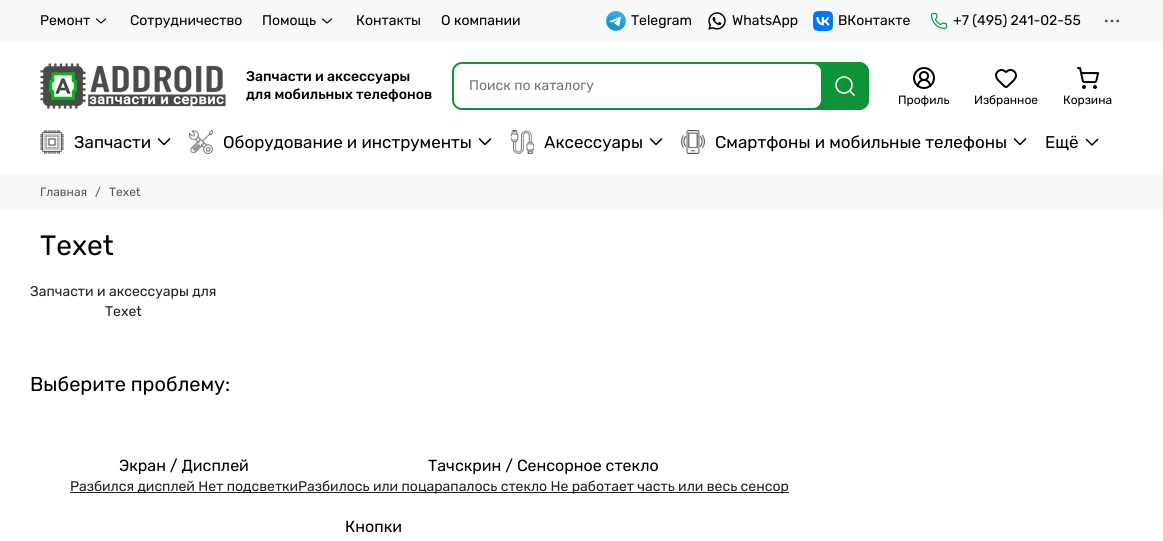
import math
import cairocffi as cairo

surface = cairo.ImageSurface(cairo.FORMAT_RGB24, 1163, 541)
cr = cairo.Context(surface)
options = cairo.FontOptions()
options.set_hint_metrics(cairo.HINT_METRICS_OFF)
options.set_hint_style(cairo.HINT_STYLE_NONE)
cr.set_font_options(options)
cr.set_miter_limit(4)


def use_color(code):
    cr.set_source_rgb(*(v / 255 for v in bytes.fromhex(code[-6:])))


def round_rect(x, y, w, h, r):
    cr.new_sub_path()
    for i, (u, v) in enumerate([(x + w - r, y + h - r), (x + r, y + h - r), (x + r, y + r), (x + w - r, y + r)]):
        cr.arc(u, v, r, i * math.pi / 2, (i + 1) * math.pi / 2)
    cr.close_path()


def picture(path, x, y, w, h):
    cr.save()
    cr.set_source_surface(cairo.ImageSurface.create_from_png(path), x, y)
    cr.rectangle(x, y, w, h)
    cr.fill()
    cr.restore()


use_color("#ffffff")
cr.paint()
use_color("#f7f8fa")
cr.rectangle(0, 0, 1163, 42)
cr.fill()
cr.select_font_face("Rubik")
cr.set_font_size(14)
use_color("#000000")
cr.move_to(40, 25)
cr.show_text("Ремонт")
cr.new_path()
cr.move_to(96.5, 19)
cr.line_to(101, 23)
cr.line_to(105.5, 19)
cr.set_line_width(1.2)
cr.set_line_cap(cairo.LINE_CAP_ROUND)
cr.set_line_join(cairo.LINE_JOIN_ROUND)
cr.stroke()
cr.move_to(130, 25)
cr.show_text("Сотрудничество")
cr.move_to(262, 25)
cr.show_text("Помощь")
cr.new_path()
cr.move_to(322.5, 19)
cr.line_to(327, 23)
cr.line_to(331.5, 19)
cr.stroke()
cr.move_to(356, 25)
cr.show_text("Контакты")
cr.move_to(441, 25)
cr.show_text("О компании")
picture("img1.png", 606, 11, 20, 20)
cr.move_to(631, 25)
cr.show_text("Telegram")
picture("img2.png", 708, 12, 18, 18)
cr.move_to(732, 25)
cr.show_text("WhatsApp")
picture("img3.png", 813, 11, 20, 20)
cr.move_to(838, 25)
cr.show_text("ВКонтакте")
picture("img4.png", 930, 12, 18, 18)
cr.move_to(953, 25)
cr.show_text("+7 (495) 241-02-55")
cr.new_path()
cr.arc(1112, 21, 0.8, 0, 2 * math.pi)
use_color("#555555")
cr.set_line_width(1.3)
cr.set_line_cap(cairo.LINE_CAP_BUTT)
cr.set_line_join(cairo.LINE_JOIN_MITER)
cr.stroke()
cr.arc(1117.8, 21, 0.8, 0, 2 * math.pi)
cr.stroke()
cr.arc(1106.2, 21, 0.8, 0, 2 * math.pi)
cr.stroke()
picture("img5.png", 40, 63, 186, 46)
cr.select_font_face("Rubik Medium")
use_color("#000000")
cr.move_to(246, 81)
cr.show_text("Запчасти и аксессуары")
cr.move_to(246, 99)
cr.show_text("для мобильных телефонов")
use_color("#0d9436")
round_rect(452, 62, 417, 48, 10)
cr.fill()
use_color("#ffffff")
round_rect(454, 64, 367, 44, 8)
cr.fill()
cr.select_font_face("Rubik")
use_color("#757575")
cr.move_to(469, 90)
cr.show_text("Поиск по каталогу")
use_color("#0d9436")
cr.new_path()
cr.move_to(821, 62)
cr.line_to(859, 62)
cr.curve_to(864.5, 62, 869, 66.5, 869, 72)
cr.line_to(869, 100)
cr.curve_to(869, 105.5, 864.5, 110, 859, 110)
cr.line_to(821, 110)
cr.close_path()
cr.fill()
cr.new_path()
cr.move_to(854, 95)
cr.line_to(849.5, 90.5)
use_color("#ffffff")
cr.set_line_width(1.6)
cr.set_line_cap(cairo.LINE_CAP_ROUND)
cr.set_line_join(cairo.LINE_JOIN_ROUND)
cr.stroke()
cr.arc(844, 85, 8, 0, 2 * math.pi)
cr.set_line_cap(cairo.LINE_CAP_BUTT)
cr.set_line_join(cairo.LINE_JOIN_MITER)
cr.stroke()
cr.new_path()
cr.move_to(930, 86)
cr.curve_to(930, 78, 918, 78, 918, 86)
use_color("#000000")
cr.set_line_width(2)
cr.set_line_cap(cairo.LINE_CAP_ROUND)
cr.set_line_join(cairo.LINE_JOIN_ROUND)
cr.stroke()
cr.arc(924, 76, 4, 0, 2 * math.pi)
cr.set_line_cap(cairo.LINE_CAP_BUTT)
cr.set_line_join(cairo.LINE_JOIN_MITER)
cr.stroke()
cr.arc(924, 78, 10, 0, 2 * math.pi)
cr.stroke()
cr.set_font_size(12)
cr.move_to(898, 104)
cr.show_text("Профиль")
picture("img6.png", 995, 69, 22, 19)
cr.move_to(974, 104)
cr.show_text("Избранное")
picture("img7.png", 1077, 67, 23, 22)
cr.move_to(1063, 104)
cr.show_text("Корзина")
picture("img8.png", 40, 130, 24, 24)
cr.set_font_size(17)
cr.move_to(74, 148)
cr.show_text("Запчасти")
cr.new_path()
cr.move_to(158.5, 139)
cr.line_to(164, 144.5)
cr.line_to(169.5, 139)
cr.set_line_width(1.5)
cr.set_line_cap(cairo.LINE_CAP_ROUND)
cr.set_line_join(cairo.LINE_JOIN_ROUND)
cr.stroke()
picture("img9.png", 189, 130, 24, 24)
cr.move_to(223, 148)
cr.show_text("Оборудование и инструменты")
cr.new_path()
cr.move_to(479.5, 139)
cr.line_to(485, 144.5)
cr.line_to(490.5, 139)
cr.stroke()
picture("img10.png", 510, 130, 24, 24)
cr.move_to(544, 148)
cr.show_text("Аксессуары")
cr.new_path()
cr.move_to(650.5, 139)
cr.line_to(656, 144.5)
cr.line_to(661.5, 139)
cr.stroke()
picture("img11.png", 681, 130, 24, 24)
cr.move_to(715, 148)
cr.show_text("Смартфоны и мобильные телефоны")
cr.new_path()
cr.move_to(1014.5, 139)
cr.line_to(1020, 144.5)
cr.line_to(1025.5, 139)
cr.stroke()
cr.move_to(1045, 148)
cr.show_text("Ещё")
cr.new_path()
cr.move_to(1086.5, 139.5)
cr.line_to(1092, 145)
cr.line_to(1097.5, 139.5)
cr.stroke()
use_color("#f7f8fa")
cr.rectangle(0, 174, 1163, 36)
cr.fill()
cr.set_font_size(12)
use_color("#555555")
cr.move_to(40, 196)
cr.show_text("Главная")
cr.move_to(95, 196)
cr.show_text("/")
cr.move_to(109, 196)
cr.show_text("Texet")
cr.set_font_size(28)
use_color("#000000")
cr.move_to(40, 255)
cr.show_text("Texet")
cr.set_font_size(14)
use_color("#222222")
cr.move_to(30, 296)
cr.show_text("Запчасти и аксессуары для")
cr.move_to(105, 316)
cr.show_text("Texet")
cr.set_font_size(20)
use_color("#000000")
cr.move_to(30, 391)
cr.show_text("Выберите проблему:")
cr.set_font_size(16)
cr.move_to(119, 471)
cr.show_text("Экран / Дисплей")
use_color("#222222")
cr.rectangle(70, 492, 719, 1)
cr.fill()
cr.set_font_size(14)
cr.move_to(70, 491)
cr.show_text("Разбился дисплей Нет подсветкиРазбилось или поцарапалось стекло Не работает часть или весь сенсор")
cr.set_font_size(16)
use_color("#000000")
cr.move_to(428, 471)
cr.show_text("Тачскрин / Сенсорное стекло")
cr.move_to(345, 532)
cr.show_text("Кнопки")
surface.write_to_png("result.png")
